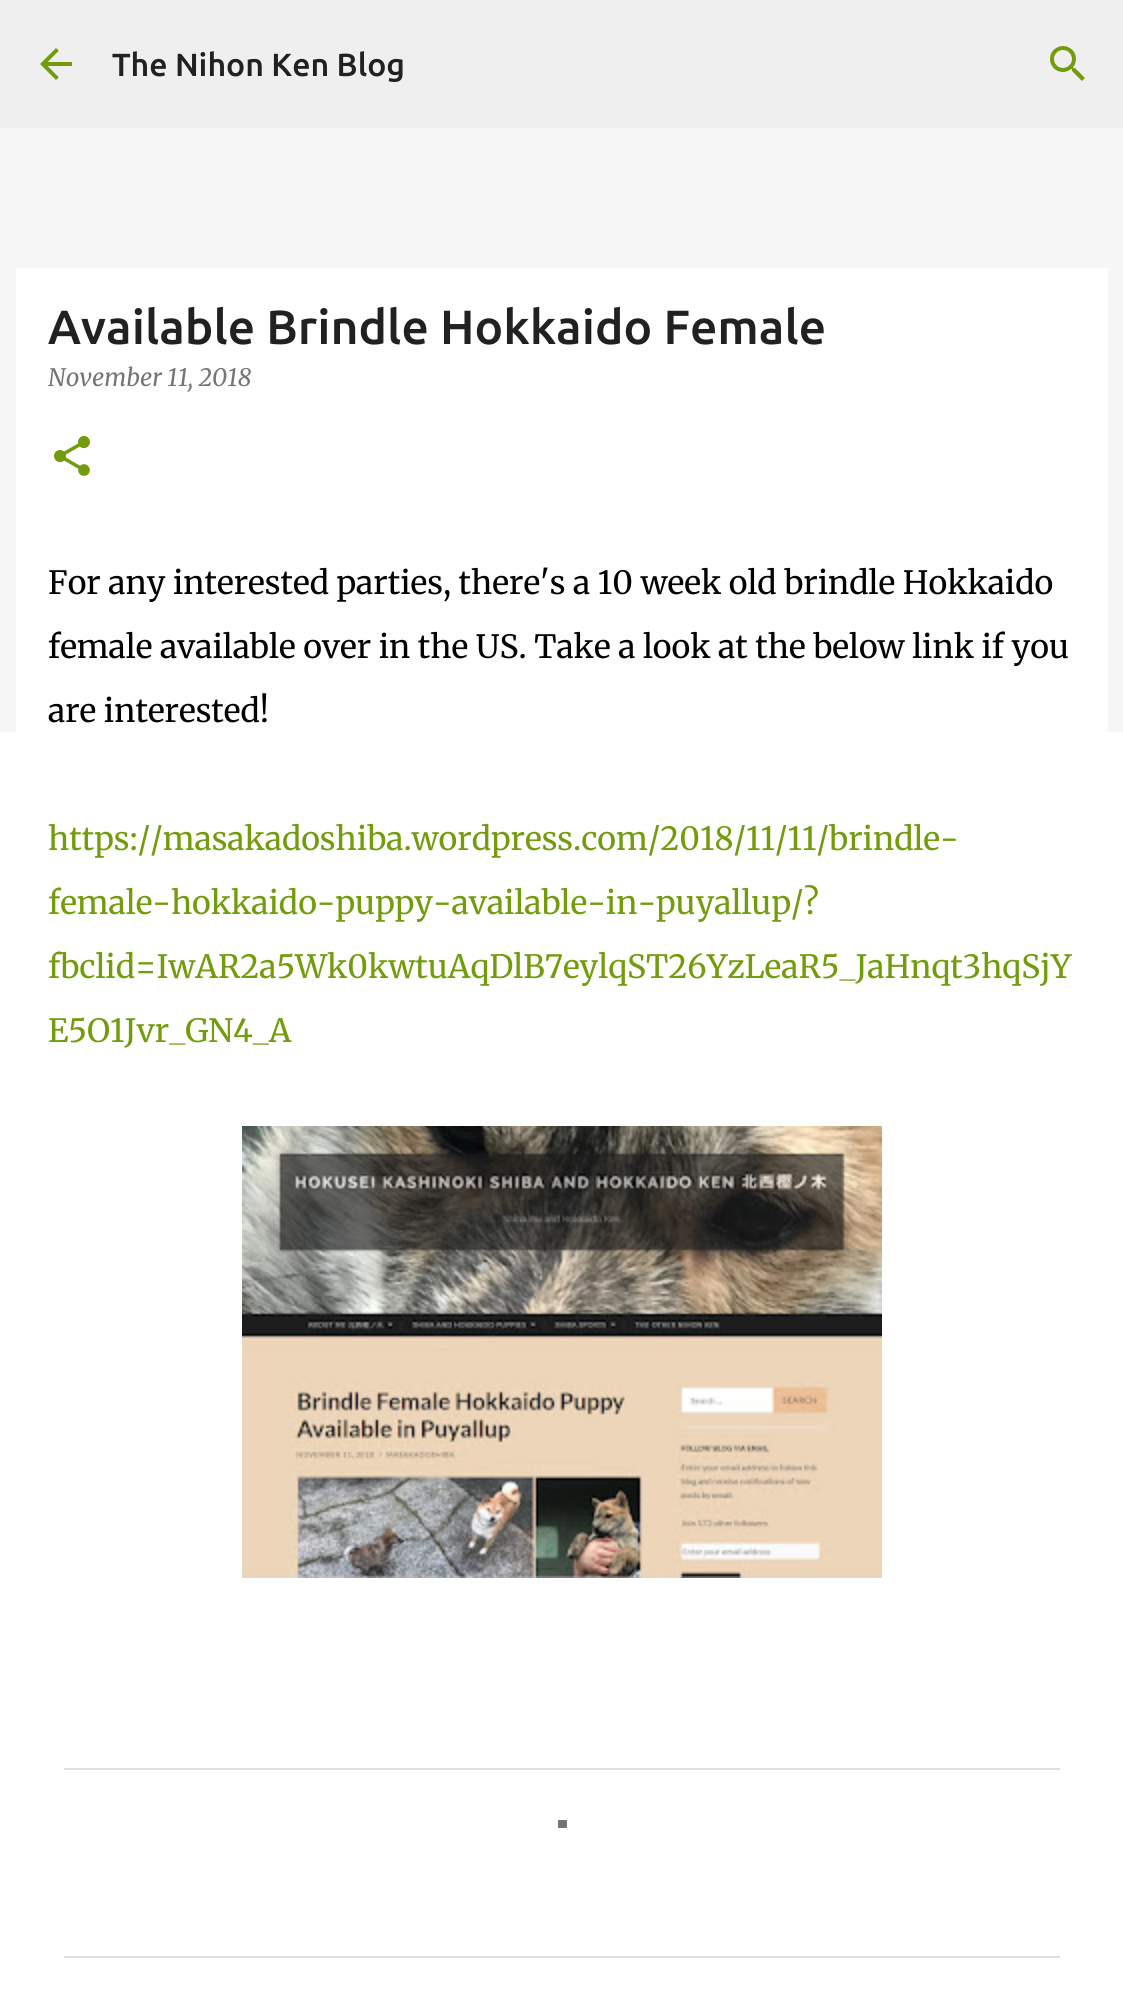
import math
import cairocffi as cairo

surface = cairo.ImageSurface(cairo.FORMAT_RGB24, 1123, 1995)
cr = cairo.Context(surface)
options = cairo.FontOptions()
options.set_hint_metrics(cairo.HINT_METRICS_OFF)
options.set_hint_style(cairo.HINT_STYLE_NONE)
cr.set_font_options(options)
cr.set_miter_limit(4)


def use_color(code):
    cr.set_source_rgb(*(v / 255 for v in bytes.fromhex(code[-6:])))


def picture(path, x, y, w, h):
    cr.save()
    cr.set_source_surface(cairo.ImageSurface.create_from_png(path), x, y)
    cr.rectangle(x, y, w, h)
    cr.fill()
    cr.restore()


use_color("#f7f7f7")
cr.paint()
use_color("#efefef")
cr.rectangle(0, 0, 1123, 128)
cr.fill()
picture("img1.png", 40, 48, 32, 32)
cr.select_font_face("Ubuntu Medium")
cr.set_font_size(32)
use_color("#212121")
cr.move_to(112, 76)
cr.show_text("The Nihon Ken Blog")
picture("img2.png", 1050, 46, 35, 35)
use_color("#ffffff")
cr.rectangle(0, 732, 1123, 1263)
cr.fill()
cr.rectangle(16, 268, 1092, 464)
cr.fill()
cr.set_font_size(48)
use_color("#212121")
cr.move_to(48, 344)
cr.show_text("Available Brindle Hokkaido Female")
cr.select_font_face("Merriweather", cairo.FONT_SLANT_ITALIC)
cr.set_font_size(24)
use_color("#757575")
cr.move_to(48, 386)
cr.show_text("November 11, 2018")
picture("img3.png", 54, 436, 36, 40)
cr.select_font_face("Merriweather Light")
cr.set_font_size(32)
use_color("#000000")
cr.move_to(48, 594)
cr.show_text("For any interested parties, there's a 10 week old brindle Hokkaido")
cr.move_to(48, 658)
cr.show_text("female available over in the US. Take a look at the below link if you")
cr.move_to(48, 722)
cr.show_text("are interested!")
use_color("#729c0b")
cr.move_to(48, 850)
cr.show_text("https://masakadoshiba.wordpress.com/2018/11/11/brindle-")
cr.move_to(48, 914)
cr.show_text("female-hokkaido-puppy-available-in-puyallup/?")
cr.move_to(48, 978)
cr.show_text("fbclid=IwAR2a5Wk0kwtuAqDlB7eylqST26YzLeaR5_JaHnqt3hqSjY")
cr.move_to(48, 1042)
cr.show_text("E5O1Jvr_GN4_A")
picture("img4.png", 242, 1126, 640, 452)
use_color("#e0e0e0")
cr.rectangle(64, 1768, 996, 2)
cr.fill()
cr.rectangle(64, 1956, 996, 2)
cr.fill()
use_color("#757575")
cr.rectangle(558, 1820, 9, 8)
cr.fill()
surface.write_to_png("result.png")
